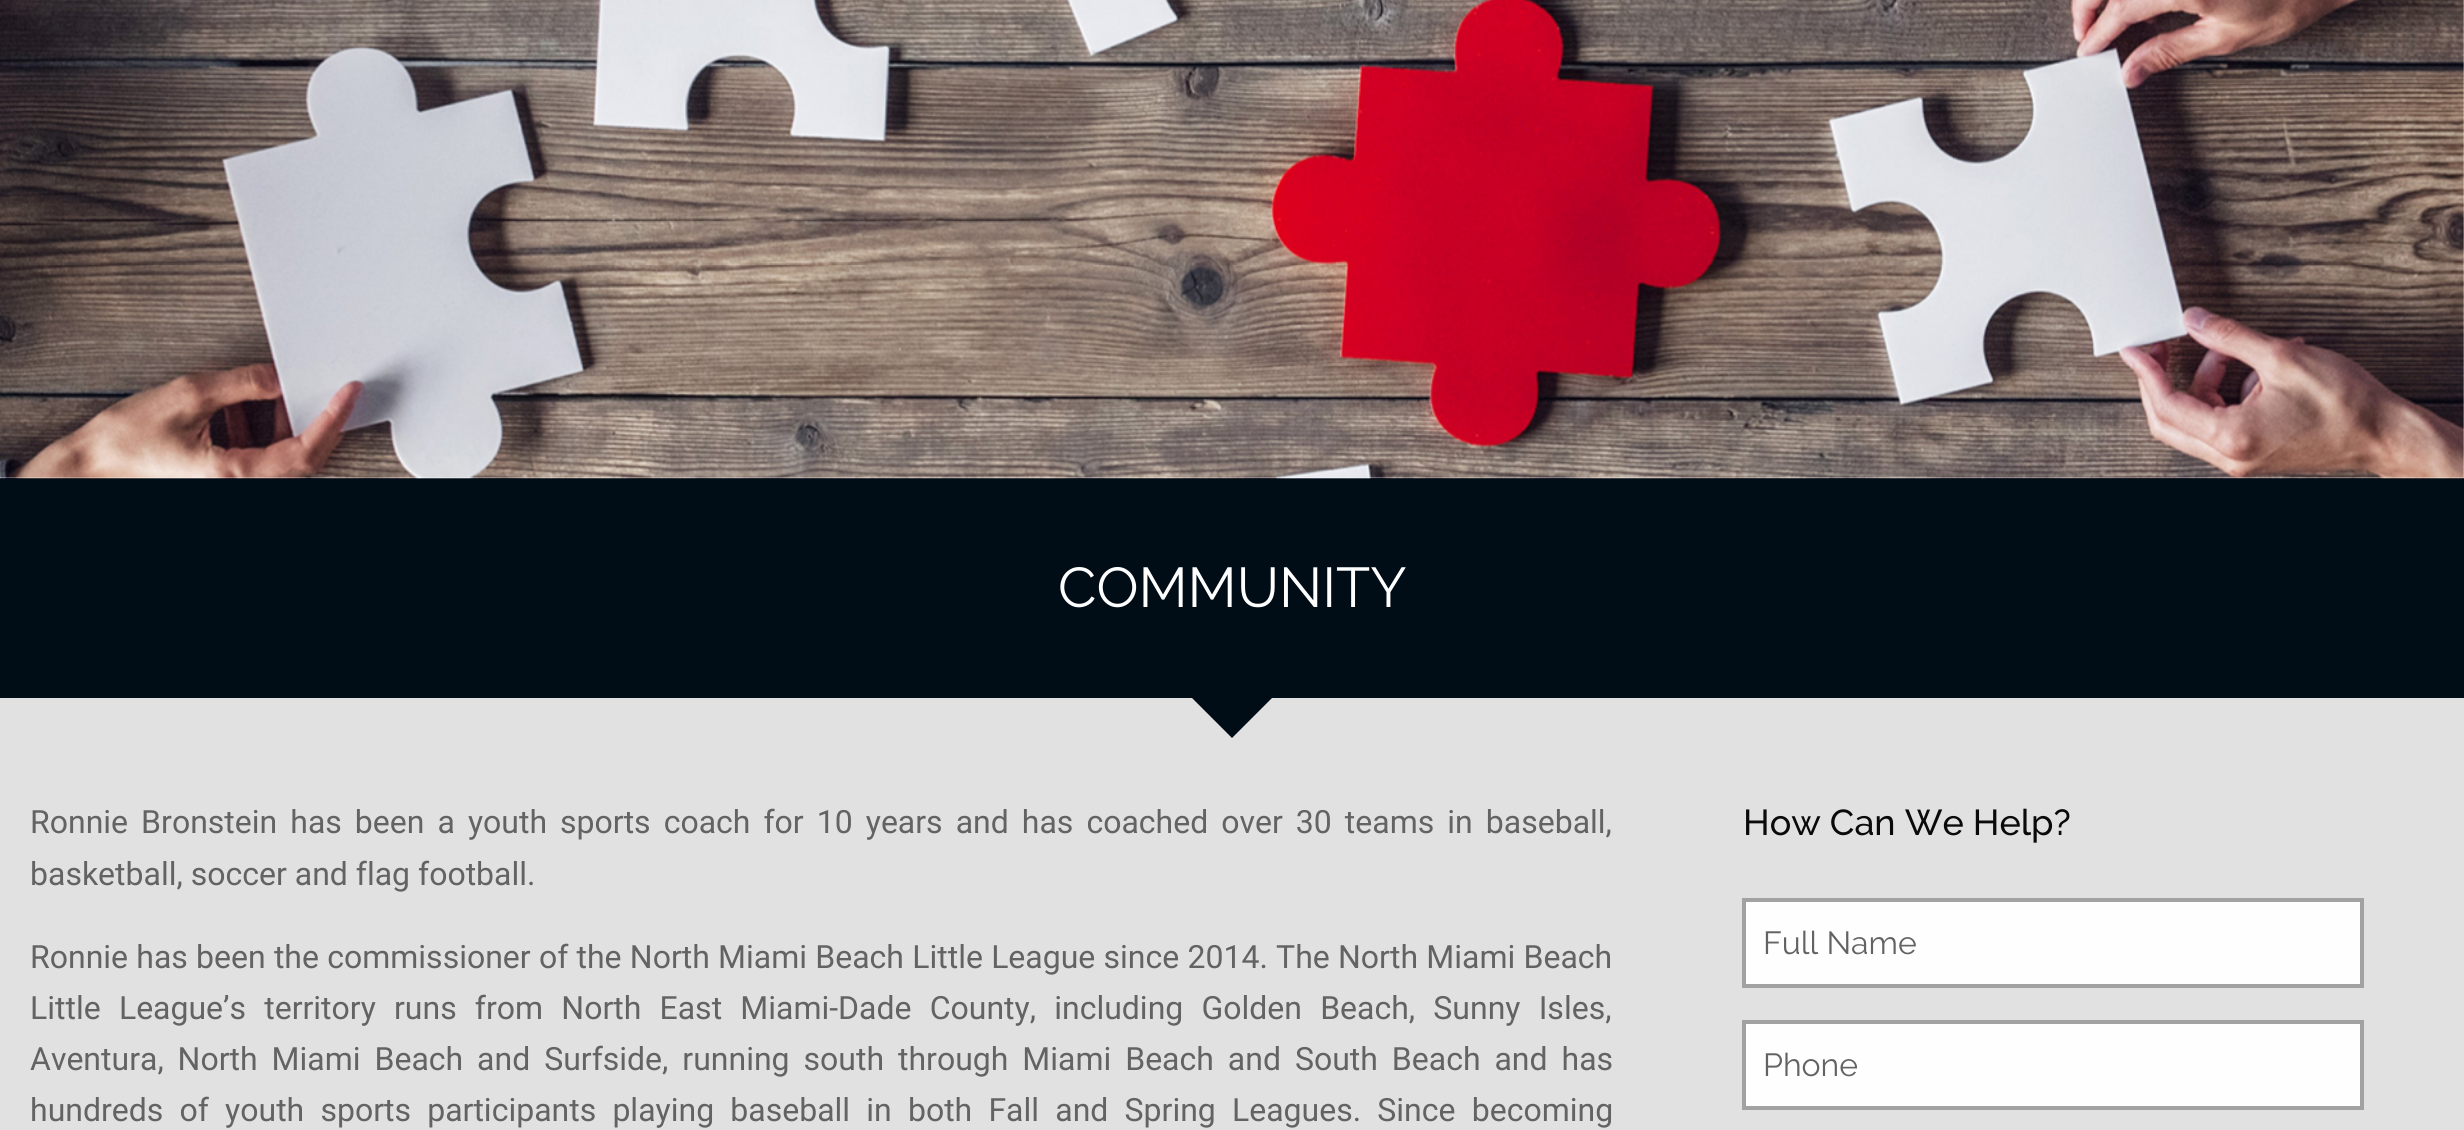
import math
import cairocffi as cairo

surface = cairo.ImageSurface(cairo.FORMAT_RGB24, 2464, 1130)
cr = cairo.Context(surface)
options = cairo.FontOptions()
options.set_hint_metrics(cairo.HINT_METRICS_OFF)
options.set_hint_style(cairo.HINT_STYLE_NONE)
cr.set_font_options(options)
cr.set_miter_limit(4)


def use_color(code):
    cr.set_source_rgb(*(v / 255 for v in bytes.fromhex(code[-6:])))


def spaced_text(x, y, s, letter, word):
    cr.move_to(x, y)
    for ch in s:
        cr.show_text(ch)
        cr.rel_move_to(letter + word * (ch == ' '), 0)


def picture(path, x, y, w, h):
    cr.save()
    cr.set_source_surface(cairo.ImageSurface.create_from_png(path), x, y)
    cr.rectangle(x, y, w, h)
    cr.fill()
    cr.restore()


use_color("#ffffff")
cr.paint()
use_color("#000c16")
cr.rectangle(0, 478, 2464, 220)
cr.fill()
picture("img1.png", 0, 0, 2464, 479)
cr.select_font_face("Raleway")
cr.set_font_size(56)
use_color("#ffffff")
cr.move_to(1058, 607)
cr.show_text("COMMUNITY")
use_color("#e1e1e1")
cr.rectangle(0, 698, 2464, 432)
cr.fill()
use_color("#000c16")
cr.new_path()
cr.move_to(1192, 698)
cr.line_to(1272, 698)
cr.line_to(1232, 738)
cr.close_path()
cr.fill()
cr.select_font_face("Roboto")
cr.set_font_size(32)
use_color("#636363")
spaced_text(30, 833, "Ronnie Bronstein has been a youth sports coach for 10 years and has coached over 30 teams in baseball,", 0, 5.1)
cr.move_to(30, 885)
cr.show_text("basketball, soccer and flag football.")
spaced_text(30, 968, "Ronnie has been the commissioner of the North Miami Beach Little League since 2014. The North Miami Beach", 0, 0.3)
spaced_text(30, 1019, "Little League’s territory runs from North East Miami-Dade County, including Golden Beach, Sunny Isles,", 0, 10.25)
spaced_text(30, 1070, "Aventura, North Miami Beach and Surfside, running south through Miami Beach and South Beach and has", 0, 6)
spaced_text(30, 1121, "hundreds of youth sports participants playing baseball in both Fall and Spring Leagues. Since becoming", 0, 8.25)
cr.select_font_face("Raleway Medium")
cr.set_font_size(36)
use_color("#0a0a0a")
cr.move_to(1743, 835)
cr.show_text("How Can We Help?")
use_color("#fefefe")
cr.rectangle(1744, 900, 618, 86)
cr.fill_preserve()
use_color("#a2a2a2")
cr.set_line_width(4)
cr.stroke()
cr.select_font_face("Raleway")
cr.set_font_size(32)
use_color("#636363")
cr.move_to(1763, 954)
cr.show_text("Full Name")
use_color("#fefefe")
cr.rectangle(1744, 1022, 618, 86)
cr.fill_preserve()
use_color("#a2a2a2")
cr.stroke()
use_color("#636363")
cr.move_to(1763, 1076)
cr.show_text("Phone")
surface.write_to_png("result.png")
